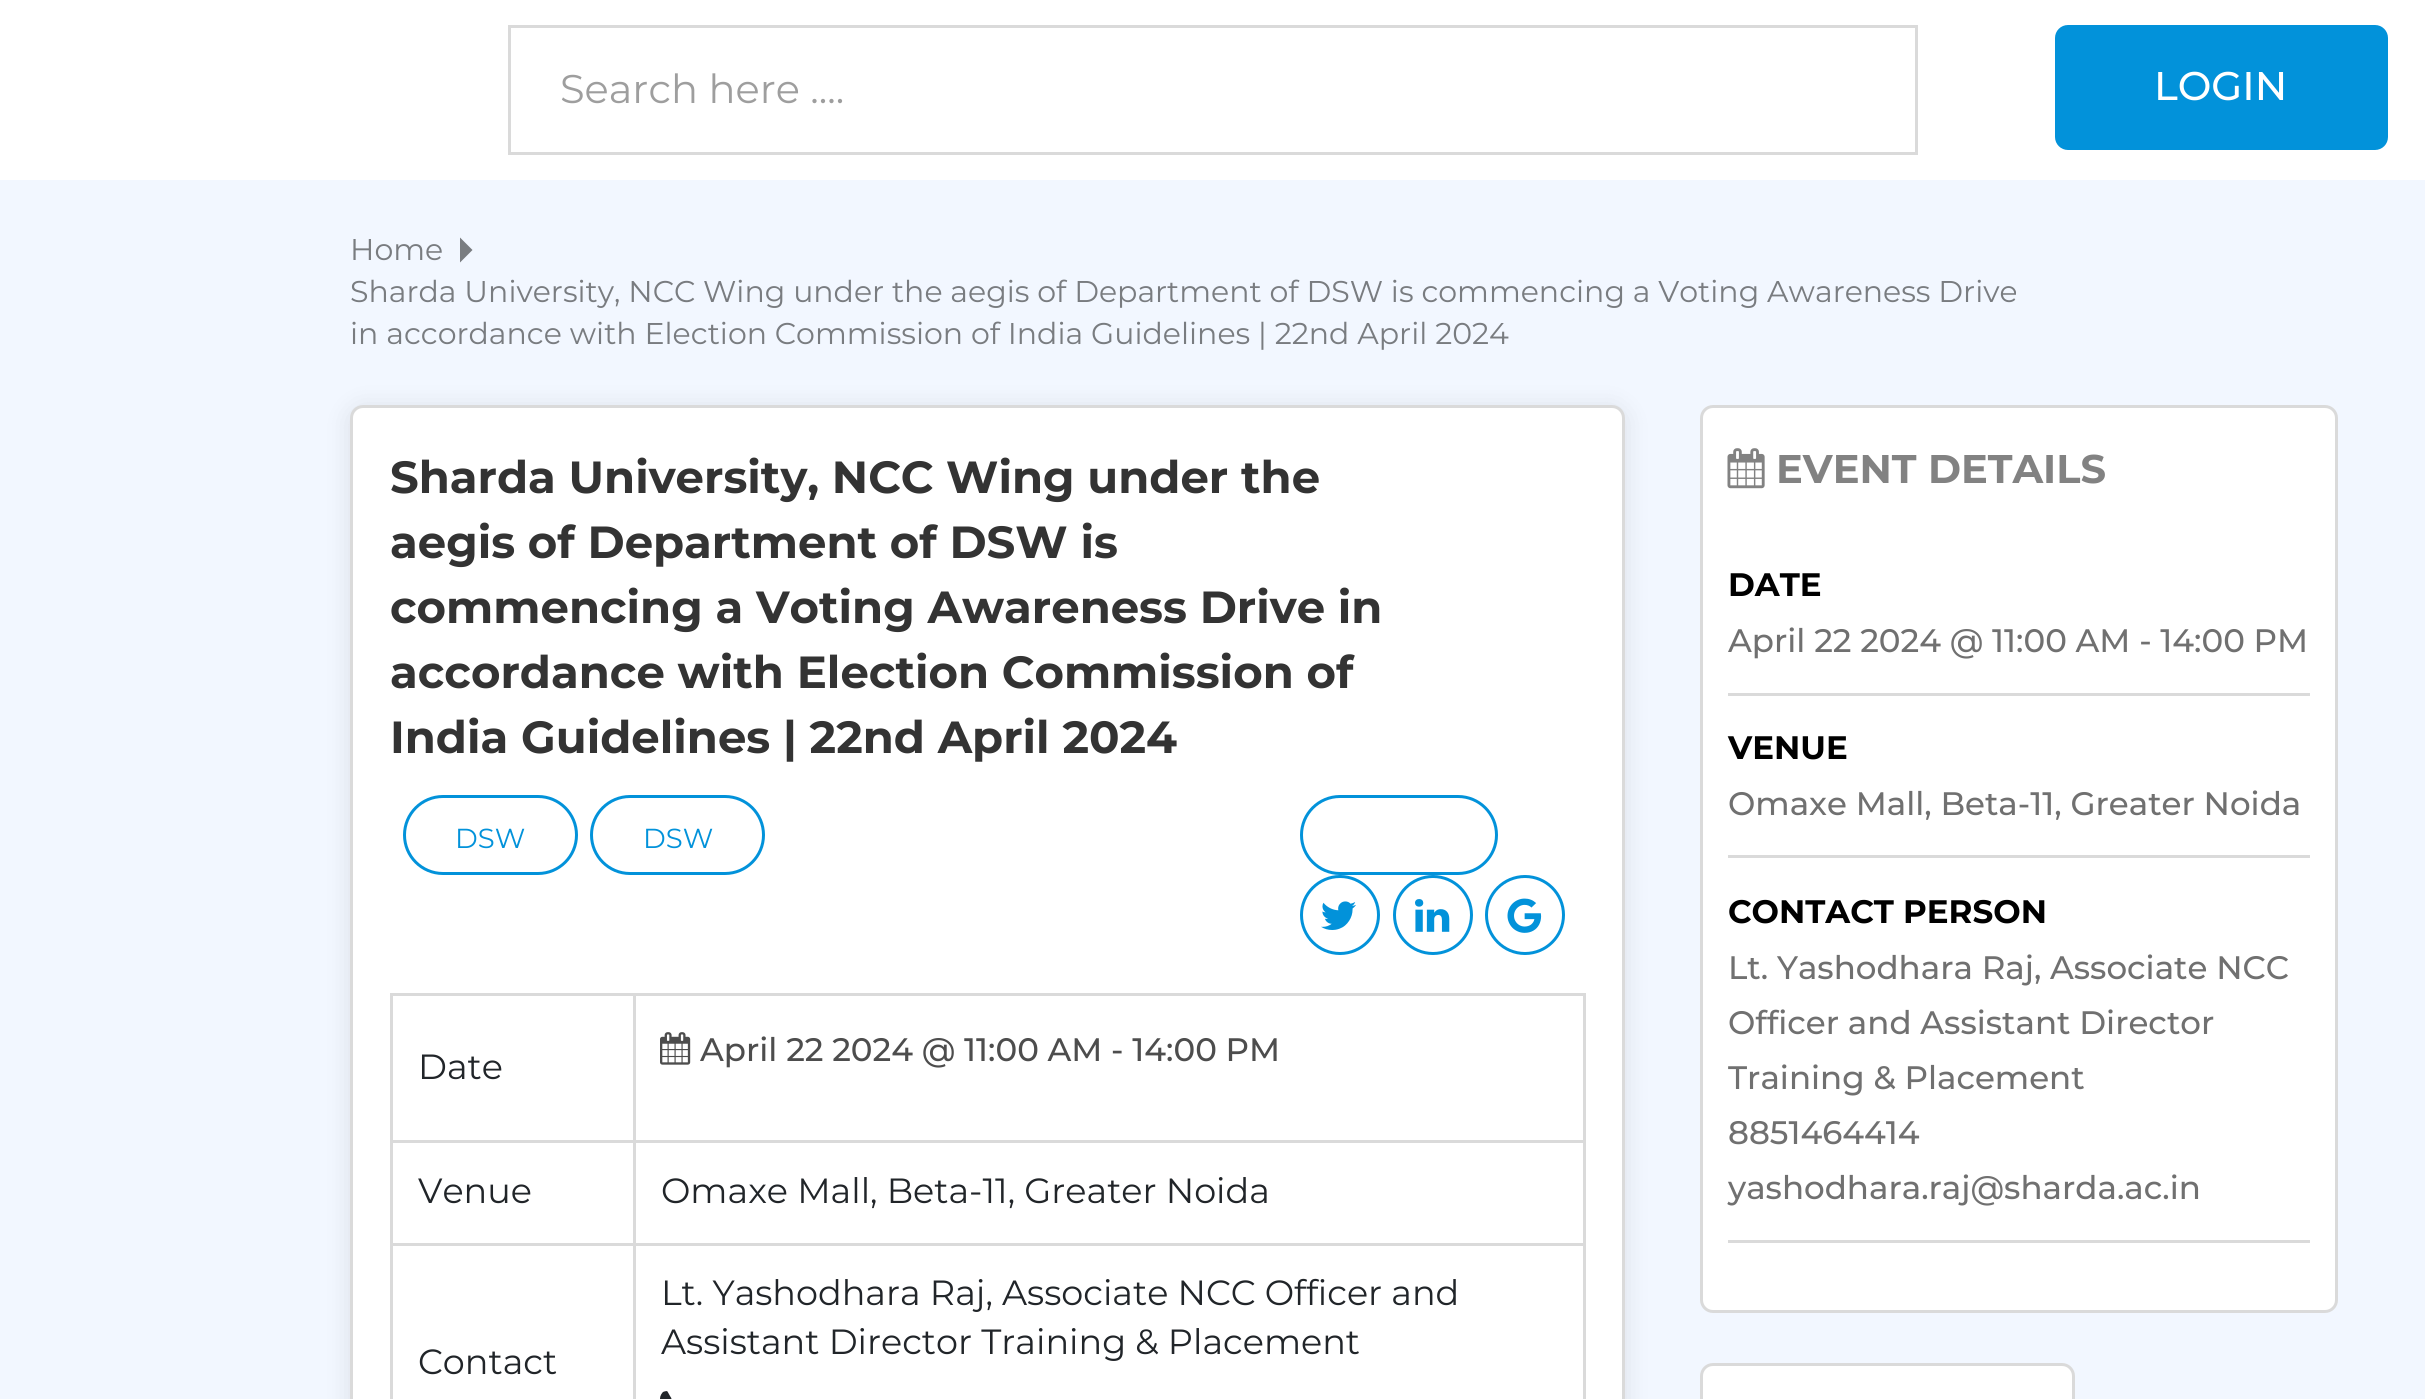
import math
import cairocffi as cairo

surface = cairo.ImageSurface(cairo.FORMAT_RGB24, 2425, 1399)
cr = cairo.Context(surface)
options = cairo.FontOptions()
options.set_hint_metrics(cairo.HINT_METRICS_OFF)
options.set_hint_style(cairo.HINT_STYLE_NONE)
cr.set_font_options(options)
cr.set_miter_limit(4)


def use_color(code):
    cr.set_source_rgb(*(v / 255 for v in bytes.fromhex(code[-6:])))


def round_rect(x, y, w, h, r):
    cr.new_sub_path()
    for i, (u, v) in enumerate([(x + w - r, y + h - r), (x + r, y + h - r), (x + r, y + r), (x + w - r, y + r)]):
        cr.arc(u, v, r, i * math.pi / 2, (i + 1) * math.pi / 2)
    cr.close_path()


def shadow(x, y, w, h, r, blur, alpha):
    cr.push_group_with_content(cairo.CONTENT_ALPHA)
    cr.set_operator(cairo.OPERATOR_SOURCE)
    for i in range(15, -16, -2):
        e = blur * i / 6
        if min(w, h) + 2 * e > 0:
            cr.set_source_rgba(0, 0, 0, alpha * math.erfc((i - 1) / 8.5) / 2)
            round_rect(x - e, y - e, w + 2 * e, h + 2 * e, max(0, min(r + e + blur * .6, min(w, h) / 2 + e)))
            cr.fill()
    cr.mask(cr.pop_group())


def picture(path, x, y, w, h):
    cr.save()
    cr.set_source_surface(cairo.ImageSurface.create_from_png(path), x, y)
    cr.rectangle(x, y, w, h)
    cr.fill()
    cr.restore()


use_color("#f2f7ff")
cr.paint()
use_color("#ffffff")
cr.rectangle(0, 0, 2425, 180)
cr.fill()
cr.rectangle(509.5, 26.5, 1407, 127)
use_color("#dadada")
cr.set_line_width(3)
cr.stroke()
cr.select_font_face("Montserrat")
cr.set_font_size(40)
use_color("#9e9e9e")
cr.move_to(560, 103)
cr.show_text("Search here ....")
use_color("#0292da")
round_rect(2055, 25, 333, 125, 13)
cr.fill()
cr.select_font_face("Montserrat Medium")
use_color("#ffffff")
cr.move_to(2154, 100)
cr.show_text("LOGIN")
cr.select_font_face("Montserrat")
cr.set_font_size(30)
use_color("#797c80")
cr.move_to(350, 260)
cr.show_text("Home")
cr.new_path()
cr.move_to(460, 262.5)
cr.line_to(460, 237.5)
cr.line_to(472.5, 250)
cr.close_path()
cr.fill()
cr.move_to(350, 302)
cr.show_text("Sharda University, NCC Wing under the aegis of Department of DSW is commencing a Voting Awareness Drive")
cr.move_to(350, 344)
cr.show_text("in accordance with Election Commission of India Guidelines | 22nd April 2024")
use_color("#000000")
shadow(350, 408, 1275, 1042, 13, 12.5, 0.1)
use_color("#ffffff")
round_rect(351.5, 406.5, 1272, 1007, 11.5)
cr.fill_preserve()
use_color("#dadada")
cr.stroke()
cr.select_font_face("Montserrat", cairo.FONT_SLANT_NORMAL, cairo.FONT_WEIGHT_BOLD)
cr.set_font_size(45)
use_color("#333333")
cr.move_to(390, 493)
cr.show_text("Sharda University, NCC Wing under the")
cr.move_to(390, 558)
cr.show_text("aegis of Department of DSW is")
cr.move_to(390, 623)
cr.show_text("commencing a Voting Awareness Drive in")
cr.move_to(390, 688)
cr.show_text("accordance with Election Commission of")
cr.move_to(390, 753)
cr.show_text("India Guidelines | 22nd April 2024")
round_rect(404.5, 796.5, 172, 77, 38.5)
use_color("#0292da")
cr.stroke()
cr.select_font_face("Montserrat")
cr.set_font_size(27.5)
cr.move_to(455, 848)
cr.show_text("DSW")
round_rect(591.5, 796.5, 172, 77, 38.5)
cr.stroke()
cr.move_to(643, 848)
cr.show_text("DSW")
round_rect(1301.5, 796.5, 195, 77, 38.5)
cr.stroke()
cr.arc(1340, 915, 38.5, 0, 2 * math.pi)
cr.stroke()
picture("img1.png", 1321, 901, 35, 29)
cr.arc(1433, 915, 38.5, 0, 2 * math.pi)
cr.stroke()
picture("img2.png", 1415, 899, 35, 33)
cr.arc(1525, 915, 38.5, 0, 2 * math.pi)
cr.stroke()
picture("img3.png", 1507, 898, 35, 35)
use_color("#dadada")
cr.rectangle(390, 993, 1195, 3)
cr.fill()
cr.rectangle(1583, 993, 3, 406)
cr.fill()
cr.rectangle(390, 993, 3, 406)
cr.fill()
cr.set_font_size(35)
use_color("#212529")
cr.move_to(418, 1079)
cr.show_text("Date")
use_color("#dadada")
cr.rectangle(633, 1140, 952, 3)
cr.fill()
cr.rectangle(633, 1243, 952, 3)
cr.fill()
cr.rectangle(633, 1243, 3, 156)
cr.fill()
cr.rectangle(390, 1243, 245, 3)
cr.fill()
cr.rectangle(633, 1140, 3, 105)
cr.fill()
cr.rectangle(390, 1140, 245, 3)
cr.fill()
cr.rectangle(633, 993, 3, 150)
cr.fill()
picture("img4.png", 660, 1032, 31, 33)
cr.select_font_face("Montserrat Medium")
cr.set_font_size(32.5)
use_color("#4d4d4d")
cr.move_to(700, 1061)
cr.show_text("April 22 2024 @ 11:00 AM - 14:00 PM")
cr.select_font_face("Montserrat")
cr.set_font_size(35)
use_color("#212529")
cr.move_to(418, 1203)
cr.show_text("Venue")
cr.move_to(661, 1203)
cr.show_text("Omaxe Mall, Beta-11, Greater Noida")
cr.move_to(418, 1374)
cr.show_text("Contact")
cr.move_to(661, 1305)
cr.show_text("Lt. Yashodhara Raj, Associate NCC Officer and")
cr.move_to(661, 1354)
cr.show_text("Assistant Director Training & Placement")
picture("img5.png", 660, 1391, 12, 8)
use_color("#ffffff")
round_rect(1701.5, 406.5, 635, 905, 11.5)
cr.fill_preserve()
use_color("#dadada")
cr.stroke()
picture("img6.png", 1727, 448, 38, 41)
cr.select_font_face("Montserrat", cairo.FONT_SLANT_NORMAL, cairo.FONT_WEIGHT_BOLD)
cr.set_font_size(40)
use_color("#828282")
cr.move_to(1776, 483)
cr.show_text("EVENT DETAILS")
use_color("#dadada")
cr.rectangle(1728, 693, 582, 3)
cr.fill()
cr.set_font_size(32.5)
use_color("#000000")
cr.move_to(1728, 596)
cr.show_text("DATE")
cr.select_font_face("Montserrat Medium")
use_color("#707070")
cr.move_to(1728, 652)
cr.show_text("April 22 2024 @ 11:00 AM - 14:00 PM")
use_color("#dadada")
cr.rectangle(1728, 855, 582, 3)
cr.fill()
cr.select_font_face("Montserrat", cairo.FONT_SLANT_NORMAL, cairo.FONT_WEIGHT_BOLD)
use_color("#000000")
cr.move_to(1728, 759)
cr.show_text("VENUE")
cr.select_font_face("Montserrat Medium")
use_color("#707070")
cr.move_to(1728, 815)
cr.show_text("Omaxe Mall, Beta-11, Greater Noida")
use_color("#dadada")
cr.rectangle(1728, 1240, 582, 3)
cr.fill()
cr.select_font_face("Montserrat", cairo.FONT_SLANT_NORMAL, cairo.FONT_WEIGHT_BOLD)
use_color("#000000")
cr.move_to(1728, 923)
cr.show_text("CONTACT PERSON")
cr.select_font_face("Montserrat Medium")
use_color("#707070")
cr.move_to(1728, 979)
cr.show_text("Lt. Yashodhara Raj, Associate NCC")
cr.move_to(1728, 1034)
cr.show_text("Officer and Assistant Director")
cr.move_to(1728, 1089)
cr.show_text("Training & Placement")
cr.move_to(1728, 1144)
cr.show_text("8851464414")
cr.move_to(1728, 1199)
cr.show_text("yashodhara.raj@sharda.ac.in")
use_color("#ffffff")
round_rect(1701.5, 1364.5, 372, 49, 11.5)
cr.fill_preserve()
use_color("#dadada")
cr.stroke()
surface.write_to_png("result.png")
